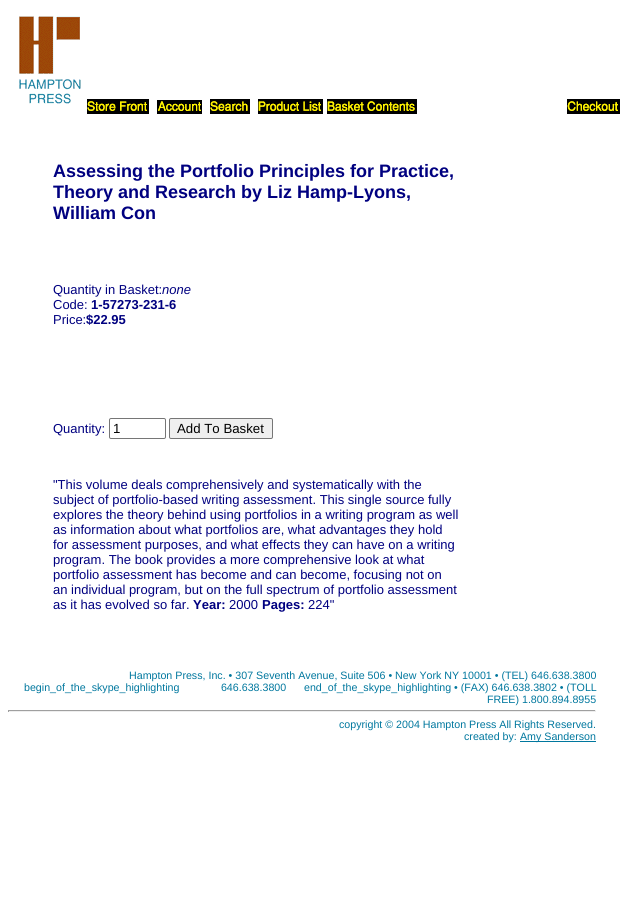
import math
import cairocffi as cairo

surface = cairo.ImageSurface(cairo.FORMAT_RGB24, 636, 921)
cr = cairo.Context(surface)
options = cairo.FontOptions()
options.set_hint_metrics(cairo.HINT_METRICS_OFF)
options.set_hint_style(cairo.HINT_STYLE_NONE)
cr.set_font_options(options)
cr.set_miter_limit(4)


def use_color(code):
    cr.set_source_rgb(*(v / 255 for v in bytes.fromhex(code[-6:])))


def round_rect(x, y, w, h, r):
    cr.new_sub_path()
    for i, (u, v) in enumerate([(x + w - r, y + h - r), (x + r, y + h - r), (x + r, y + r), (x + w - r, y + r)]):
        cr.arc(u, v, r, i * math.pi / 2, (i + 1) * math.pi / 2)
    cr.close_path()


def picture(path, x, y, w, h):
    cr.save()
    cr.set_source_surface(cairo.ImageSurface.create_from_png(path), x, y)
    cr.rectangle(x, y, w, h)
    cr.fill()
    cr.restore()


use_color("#ffffff")
cr.paint()
picture("img1.png", 19, 16, 62, 88)
picture("img2.png", 87, 99, 62, 15)
picture("img3.png", 157, 100, 45, 14)
picture("img4.png", 210, 99, 40, 15)
picture("img5.png", 258, 99, 65, 15)
picture("img6.png", 327, 99, 90, 15)
picture("img7.png", 567, 99, 53, 15)
cr.select_font_face("Liberation Sans", cairo.FONT_SLANT_NORMAL, cairo.FONT_WEIGHT_BOLD)
cr.set_font_size(18)
use_color("#000080")
cr.move_to(53, 177)
cr.show_text("Assessing the Portfolio Principles for Practice,")
cr.move_to(53, 198)
cr.show_text("Theory and Research by Liz Hamp-Lyons,")
cr.move_to(53, 219)
cr.show_text("William Con")
cr.select_font_face("Liberation Sans")
cr.set_font_size(13)
cr.move_to(53, 294)
cr.show_text("Quantity in Basket:")
cr.select_font_face("Liberation Sans", cairo.FONT_SLANT_ITALIC)
cr.move_to(162, 294)
cr.show_text("none")
cr.select_font_face("Liberation Sans")
cr.move_to(53, 309)
cr.show_text("Code:")
cr.select_font_face("Liberation Sans", cairo.FONT_SLANT_NORMAL, cairo.FONT_WEIGHT_BOLD)
cr.move_to(91, 309)
cr.show_text("1-57273-231-6")
cr.select_font_face("Liberation Sans")
cr.move_to(53, 324)
cr.show_text("Price:")
cr.select_font_face("Liberation Sans", cairo.FONT_SLANT_NORMAL, cairo.FONT_WEIGHT_BOLD)
cr.move_to(86, 324)
cr.show_text("$22.95")
cr.select_font_face("Liberation Sans")
cr.move_to(53, 433)
cr.show_text("Quantity:")
round_rect(109.5, 418.5, 56, 20, 1.5)
use_color("#767676")
cr.set_line_width(1)
cr.stroke()
cr.set_font_size(13.25)
use_color("#000000")
cr.move_to(113, 433)
cr.show_text("1")
use_color("#efefef")
round_rect(169.5, 418.5, 103, 20, 1.5)
cr.fill_preserve()
use_color("#767676")
cr.stroke()
use_color("#000000")
cr.move_to(177, 433)
cr.show_text("Add To Basket")
cr.set_font_size(13)
use_color("#000080")
cr.move_to(53, 489)
cr.show_text("\"This volume deals comprehensively and systematically with the")
cr.move_to(53, 504)
cr.show_text("subject of portfolio-based writing assessment. This single source fully")
cr.move_to(53, 519)
cr.show_text("explores the theory behind using portfolios in a writing program as well")
cr.move_to(53, 534)
cr.show_text("as information about what portfolios are, what advantages they hold")
cr.move_to(53, 549)
cr.show_text("for assessment purposes, and what effects they can have on a writing")
cr.move_to(53, 564)
cr.show_text("program. The book provides a more comprehensive look at what")
cr.move_to(53, 579)
cr.show_text("portfolio assessment has become and can become, focusing not on")
cr.move_to(53, 594)
cr.show_text("an individual program, but on the full spectrum of portfolio assessment")
cr.move_to(53, 609)
cr.show_text("as it has evolved so far.")
cr.select_font_face("Liberation Sans", cairo.FONT_SLANT_NORMAL, cairo.FONT_WEIGHT_BOLD)
cr.move_to(193, 609)
cr.show_text("Year:")
cr.select_font_face("Liberation Sans")
cr.move_to(229, 609)
cr.show_text("2000")
cr.select_font_face("Liberation Sans", cairo.FONT_SLANT_NORMAL, cairo.FONT_WEIGHT_BOLD)
cr.move_to(262, 609)
cr.show_text("Pages:")
cr.select_font_face("Liberation Sans")
cr.move_to(308, 609)
cr.show_text("224\"")
cr.set_font_size(10.67)
use_color("#00779e")
cr.move_to(129, 679)
cr.show_text("Hampton Press, Inc. • 307 Seventh Avenue, Suite 506 • New York NY 10001 • (TEL) 646.638.3800")
cr.move_to(24, 691)
cr.show_text("begin_of_the_skype_highlighting              646.638.3800      end_of_the_skype_highlighting • (FAX) 646.638.3802 • (TOLL")
cr.move_to(487, 703)
cr.show_text("FREE) 1.800.894.8955")
use_color("#9f9f9f")
cr.rectangle(8, 710, 588, 1)
cr.fill()
use_color("#eeeeee")
cr.rectangle(595, 710, 1, 2)
cr.fill()
cr.rectangle(8, 711, 588, 1)
cr.fill()
use_color("#9f9f9f")
cr.rectangle(8, 710, 1, 2)
cr.fill()
use_color("#00779e")
cr.move_to(339, 728)
cr.show_text("copyright © 2004 Hampton Press All Rights Reserved.")
cr.move_to(464, 740)
cr.show_text("created by:")
cr.rectangle(520, 741, 76, 1)
cr.fill()
cr.move_to(520, 740)
cr.show_text("Amy Sanderson")
surface.write_to_png("result.png")
